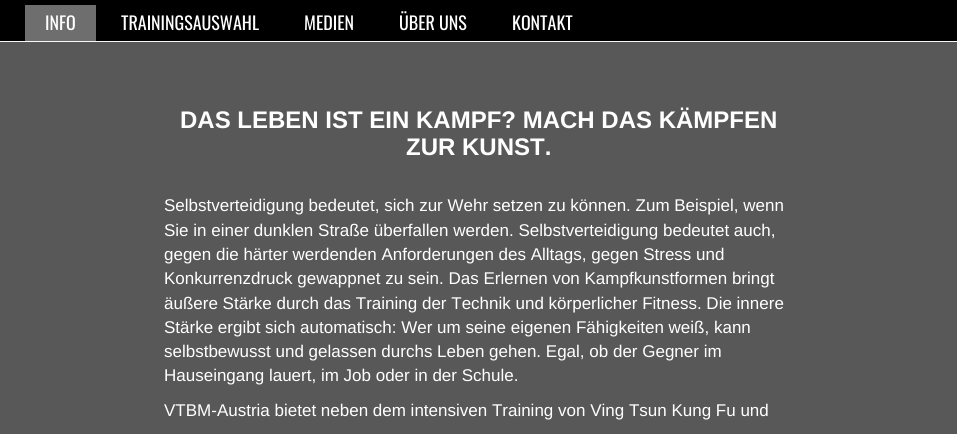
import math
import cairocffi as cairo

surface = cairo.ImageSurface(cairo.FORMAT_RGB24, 957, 434)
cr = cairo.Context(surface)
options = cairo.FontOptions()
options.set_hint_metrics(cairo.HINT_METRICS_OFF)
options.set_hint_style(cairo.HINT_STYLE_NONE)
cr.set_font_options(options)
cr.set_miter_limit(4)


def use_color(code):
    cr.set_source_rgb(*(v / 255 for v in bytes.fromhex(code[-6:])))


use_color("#585858")
cr.paint()
use_color("#000000")
cr.rectangle(0, 0, 957, 41)
cr.fill()
use_color("#f8f8f8")
cr.rectangle(0, 41, 957, 1)
cr.fill()
use_color("#6e6e6e")
cr.rectangle(25, 5, 71, 36)
cr.fill()
cr.select_font_face("Oswald")
cr.set_font_size(18)
use_color("#ffffff")
cr.move_to(45, 30)
cr.show_text("INFO")
cr.move_to(121, 30)
cr.show_text("TRAININGSAUSWAHL")
cr.move_to(304, 30)
cr.show_text("MEDIEN")
cr.move_to(399, 30)
cr.show_text("ÜBER UNS")
cr.move_to(512, 30)
cr.show_text("KONTAKT")
cr.select_font_face("Liberation Sans", cairo.FONT_SLANT_NORMAL, cairo.FONT_WEIGHT_BOLD)
cr.set_font_size(24)
cr.move_to(180, 128)
cr.show_text("DAS LEBEN IST EIN KAMPF? MACH DAS KÄMPFEN")
cr.move_to(406, 155)
cr.show_text("ZUR KUNST.")
cr.select_font_face("Liberation Sans")
cr.set_font_size(17)
cr.move_to(164, 211)
cr.show_text("Selbstverteidigung bedeutet, sich zur Wehr setzen zu können. Zum Beispiel, wenn")
cr.move_to(164, 236)
cr.show_text("Sie in einer dunklen Straße überfallen werden. Selbstverteidigung bedeutet auch,")
cr.move_to(164, 260)
cr.show_text("gegen die härter werdenden Anforderungen des Alltags, gegen Stress und")
cr.move_to(164, 284)
cr.show_text("Konkurrenzdruck gewappnet zu sein. Das Erlernen von Kampfkunstformen bringt")
cr.move_to(164, 309)
cr.show_text("äußere Stärke durch das Training der Technik und körperlicher Fitness. Die innere")
cr.move_to(164, 333)
cr.show_text("Stärke ergibt sich automatisch: Wer um seine eigenen Fähigkeiten weiß, kann")
cr.move_to(164, 357)
cr.show_text("selbstbewusst und gelassen durchs Leben gehen. Egal, ob der Gegner im")
cr.move_to(164, 381)
cr.show_text("Hauseingang lauert, im Job oder in der Schule.")
cr.move_to(164, 416)
cr.show_text("VTBM-Austria bietet neben dem intensiven Training von Ving Tsun Kung Fu und")
surface.write_to_png("result.png")
